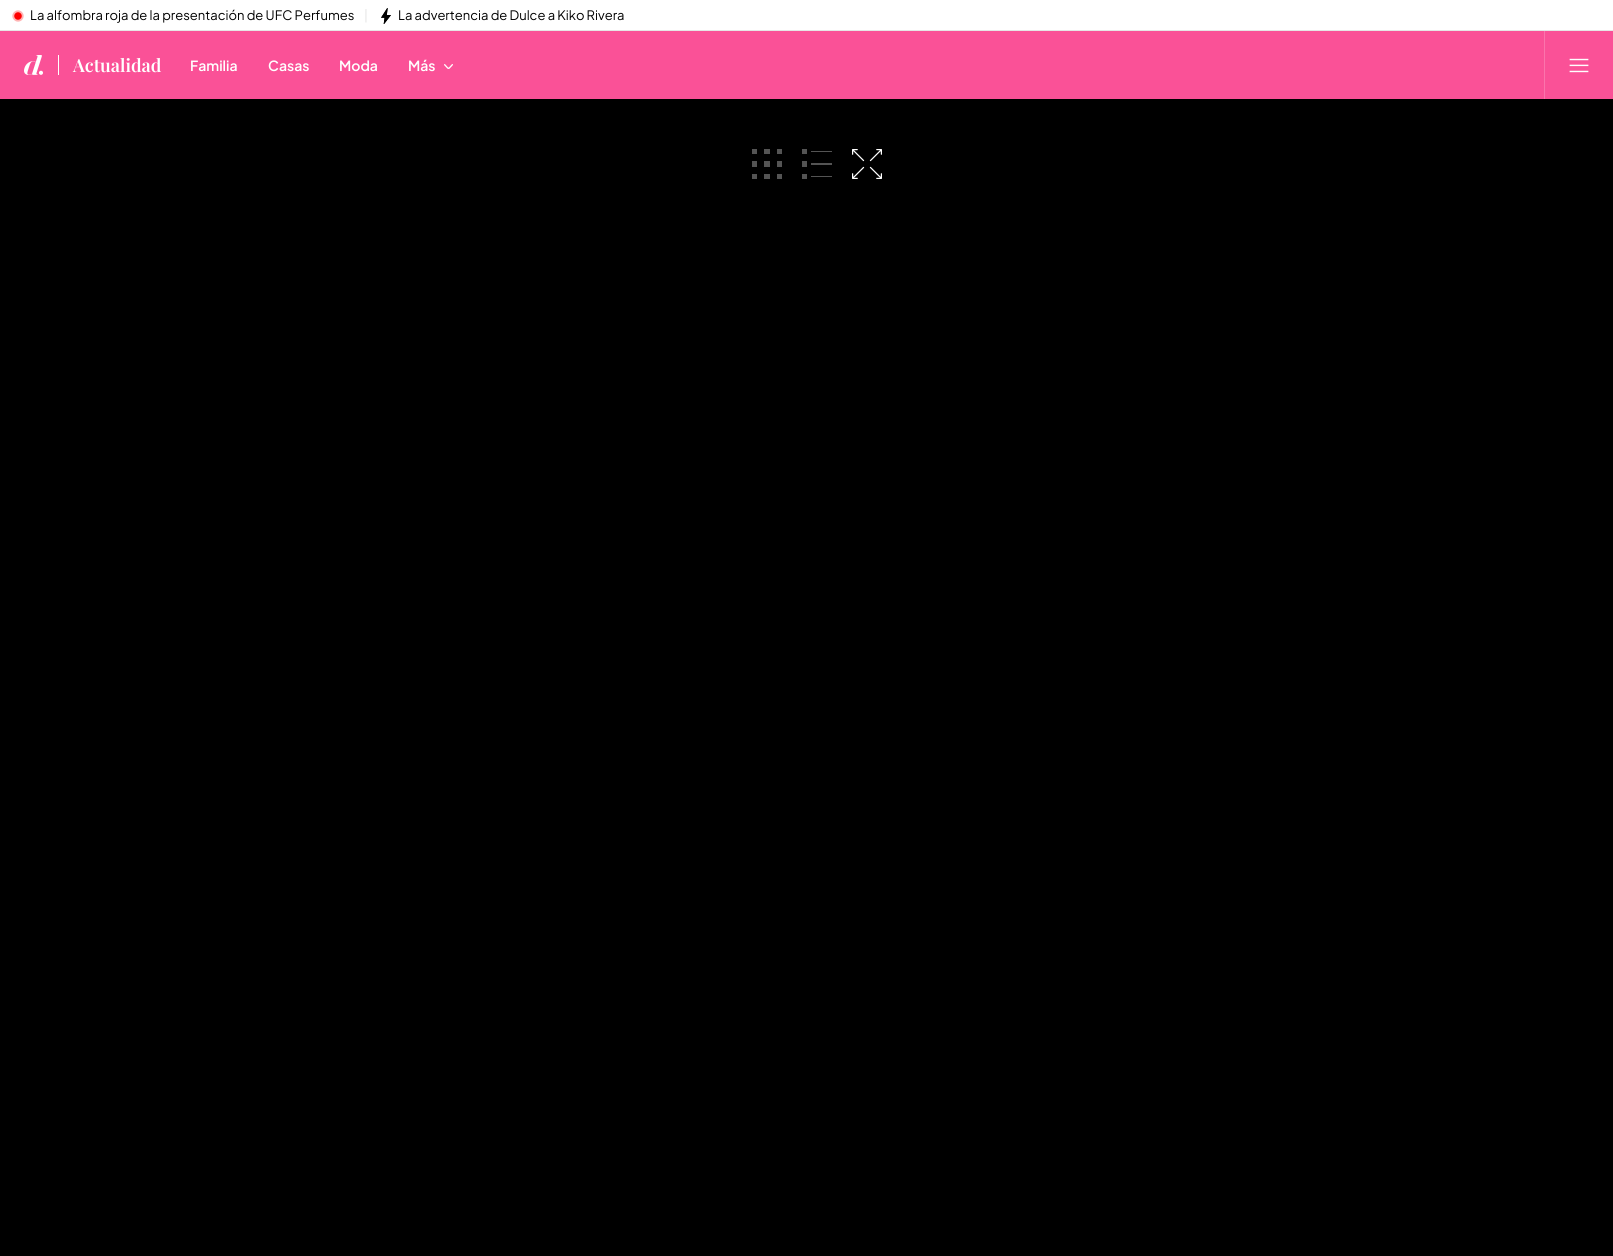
import math
import cairocffi as cairo

surface = cairo.ImageSurface(cairo.FORMAT_RGB24, 1613, 1256)
cr = cairo.Context(surface)
options = cairo.FontOptions()
options.set_hint_metrics(cairo.HINT_METRICS_OFF)
options.set_hint_style(cairo.HINT_STYLE_NONE)
cr.set_font_options(options)
cr.set_miter_limit(4)


def use_color(code):
    cr.set_source_rgb(*(v / 255 for v in bytes.fromhex(code[-6:])))


def picture(path, x, y, w, h):
    cr.save()
    cr.set_source_surface(cairo.ImageSurface.create_from_png(path), x, y)
    cr.rectangle(x, y, w, h)
    cr.fill()
    cr.restore()


use_color("#000000")
cr.paint()
use_color("#ffffff")
cr.rectangle(0, 0, 1613, 30)
cr.fill()
use_color("#e6e6e6")
cr.rectangle(0, 30, 1613, 1)
cr.fill()
picture("img1.png", 12, 10, 12, 12)
cr.select_font_face("Plus Jakarta Sans")
cr.set_font_size(13)
use_color("#000000")
cr.move_to(30, 20)
cr.show_text("La alfombra roja de la presentación de UFC Perfumes")
use_color("#e5e5e5")
cr.move_to(364, 20)
cr.show_text("|")
picture("img2.png", 381, 8, 10, 16)
use_color("#000000")
cr.move_to(398, 20)
cr.show_text("La advertencia de Dulce a Kiko Rivera")
use_color("#fa5197")
cr.rectangle(0, 31, 1613, 68)
cr.fill()
picture("img3.png", 24, 55, 19, 20)
use_color("#ffffff")
cr.rectangle(58, 55, 1, 20)
cr.fill()
cr.select_font_face("Playfair Display SemiBold")
cr.set_font_size(18)
cr.move_to(73, 72)
cr.show_text("Actualidad")
cr.select_font_face("Plus Jakarta Sans SemiBold")
cr.set_font_size(14)
cr.move_to(190, 71)
cr.show_text("Familia")
cr.move_to(268, 71)
cr.show_text("Casas")
cr.move_to(339, 71)
cr.show_text("Moda")
cr.move_to(408, 71)
cr.show_text("Más")
picture("img4.png", 444, 64, 9, 5)
use_color("#fb74ac")
cr.rectangle(1544, 31, 1, 68)
cr.fill()
picture("img5.png", 1569, 58, 20, 15)
picture("img6.png", 752, 149, 30, 30)
use_color("#545454")
cr.rectangle(802, 149, 5, 5)
cr.fill()
cr.rectangle(811, 151, 21, 1)
cr.fill()
cr.rectangle(802, 161, 5, 6)
cr.fill()
cr.rectangle(811, 163, 21, 2)
cr.fill()
cr.rectangle(802, 174, 5, 5)
cr.fill()
cr.rectangle(811, 176, 21, 1)
cr.fill()
picture("img7.png", 852, 149, 30, 30)
surface.write_to_png("result.png")
